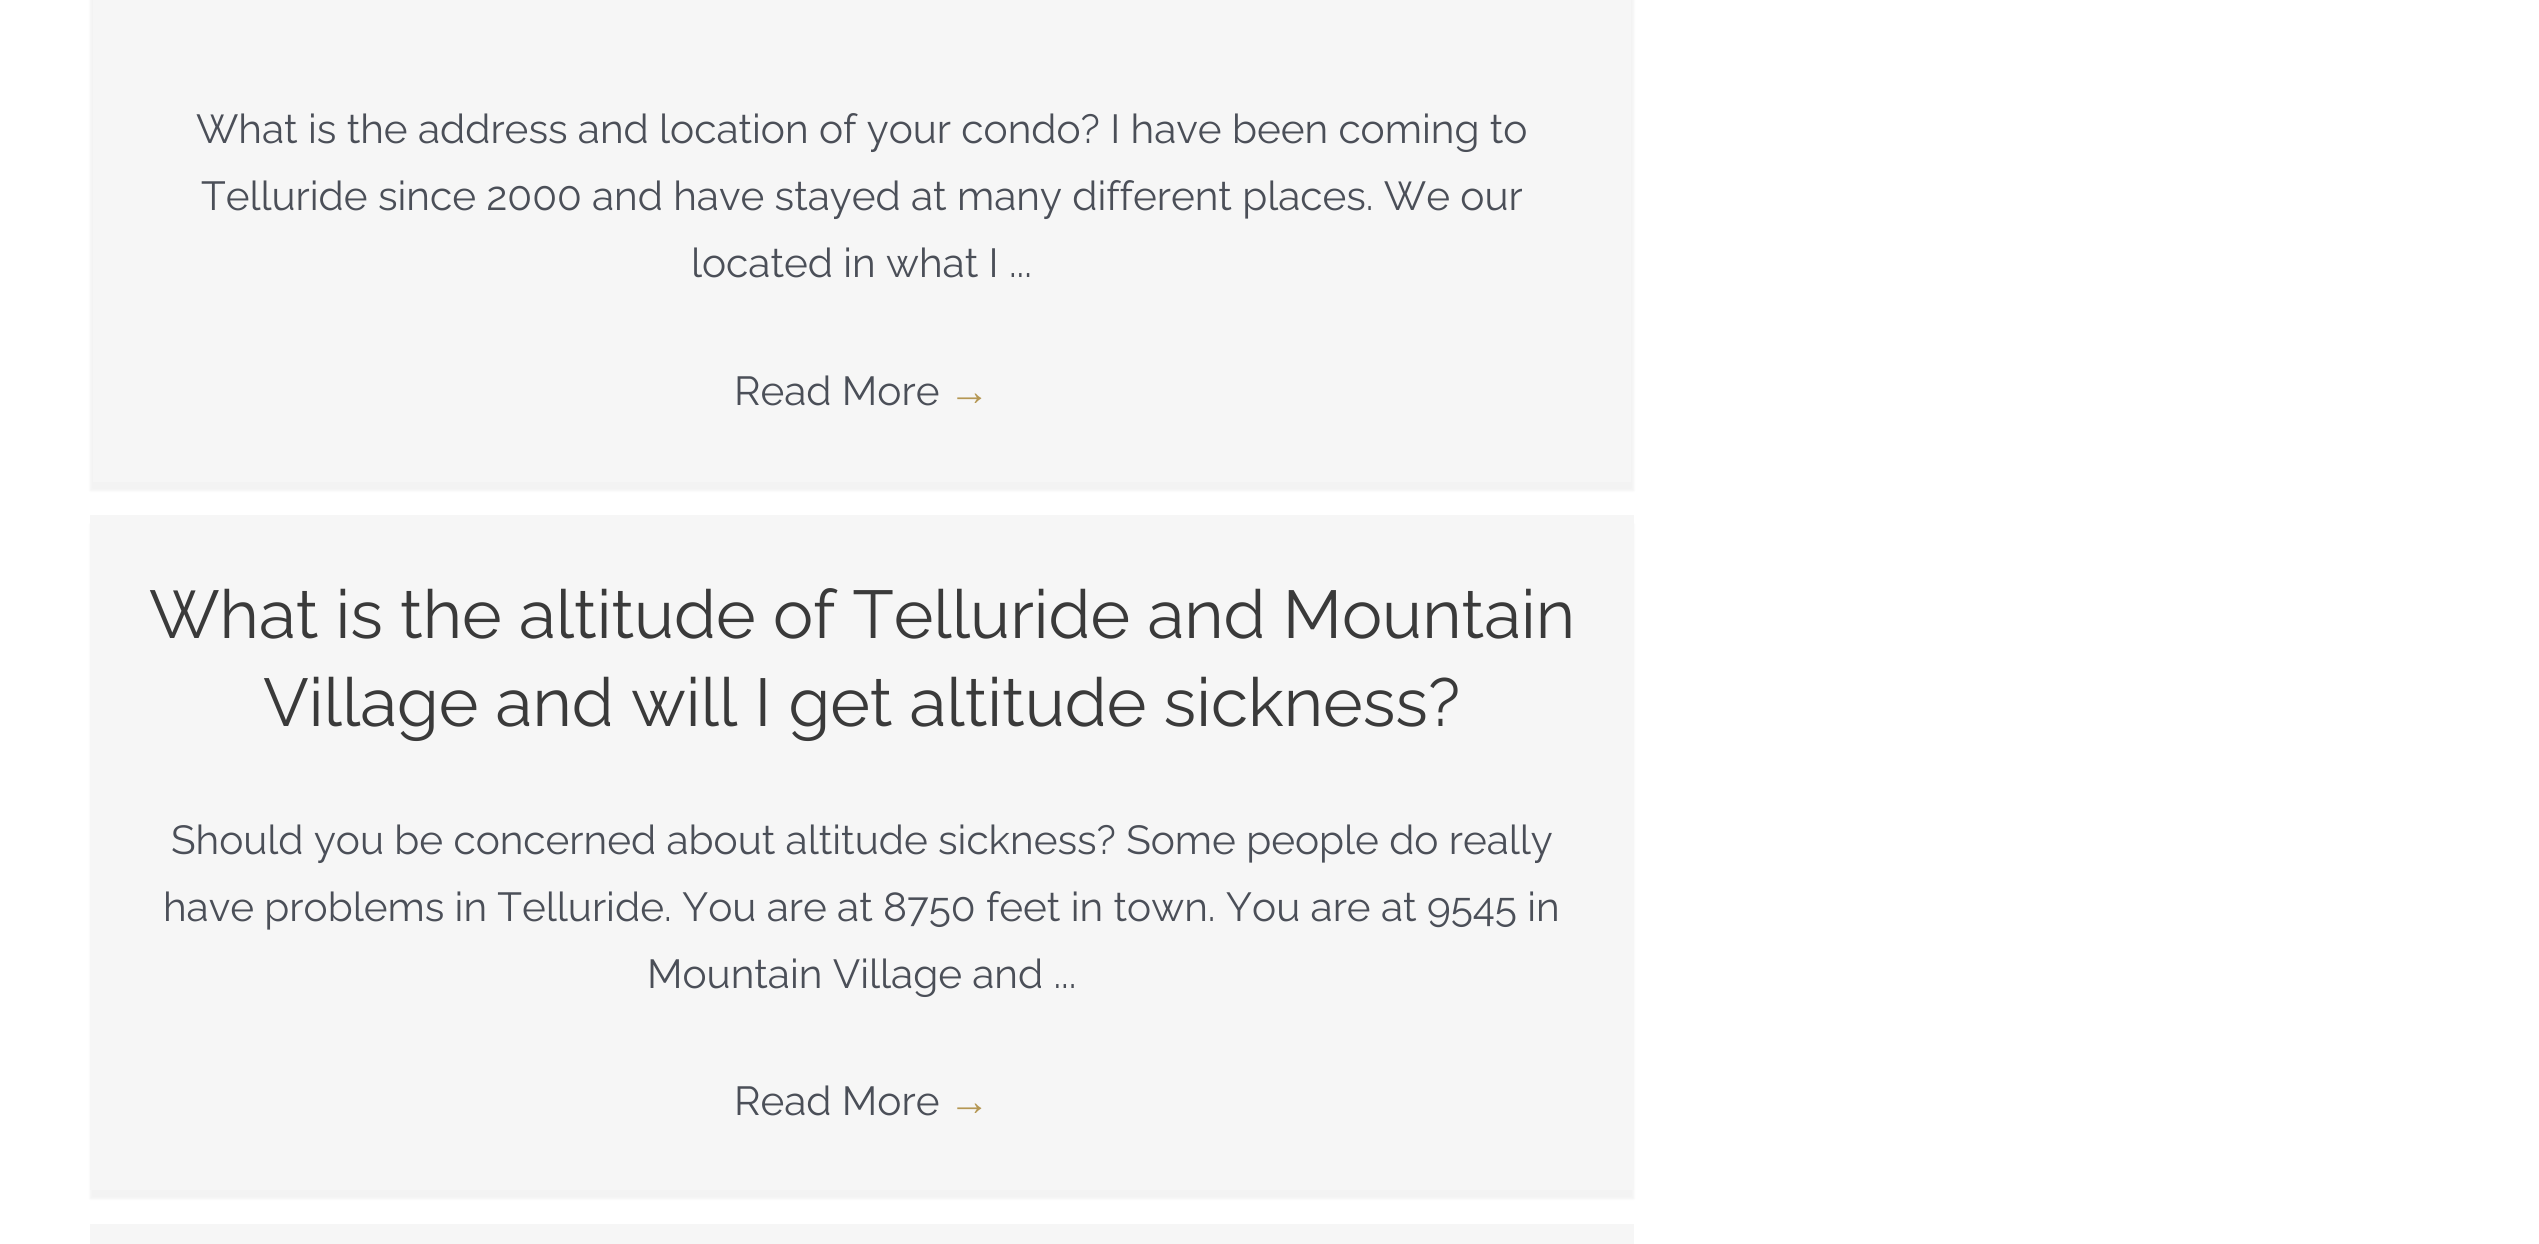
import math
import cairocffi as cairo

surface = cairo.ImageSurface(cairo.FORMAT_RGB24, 2539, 1244)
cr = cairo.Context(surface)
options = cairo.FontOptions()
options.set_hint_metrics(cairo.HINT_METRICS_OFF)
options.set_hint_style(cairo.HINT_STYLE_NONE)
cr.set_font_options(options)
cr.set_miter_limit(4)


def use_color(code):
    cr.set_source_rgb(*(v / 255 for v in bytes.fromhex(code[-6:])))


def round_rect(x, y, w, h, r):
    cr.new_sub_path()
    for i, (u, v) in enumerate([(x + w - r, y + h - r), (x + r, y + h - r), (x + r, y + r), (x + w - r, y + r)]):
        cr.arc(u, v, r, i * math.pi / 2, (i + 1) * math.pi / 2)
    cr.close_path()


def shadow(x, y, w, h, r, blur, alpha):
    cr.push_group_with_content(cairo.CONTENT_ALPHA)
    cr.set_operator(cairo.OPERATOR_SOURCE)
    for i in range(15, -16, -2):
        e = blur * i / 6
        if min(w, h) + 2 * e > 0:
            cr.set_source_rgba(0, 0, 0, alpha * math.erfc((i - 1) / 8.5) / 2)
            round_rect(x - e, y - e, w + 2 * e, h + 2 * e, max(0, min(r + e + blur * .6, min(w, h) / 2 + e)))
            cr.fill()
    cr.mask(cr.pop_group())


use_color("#ffffff")
cr.paint()
use_color("#c5c5c5")
shadow(90, -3, 1544, 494, 0, 1, 0.2)
use_color("#f6f6f6")
cr.rectangle(93, 0, 1538, 482)
cr.fill()
cr.select_font_face("Raleway Thin")
cr.set_font_size(40.5)
use_color("#4b4f58")
cr.move_to(196, 143)
cr.show_text("What is the address and location of your condo? I have been coming to")
cr.move_to(201, 210)
cr.show_text("Telluride since 2000 and have stayed at many different places. We our")
cr.move_to(691, 277)
cr.show_text("located in what I ...")
cr.move_to(734, 405)
cr.show_text("Read More")
cr.select_font_face("Liberation Sans")
use_color("#b59753")
cr.move_to(949, 405)
cr.show_text("→")
use_color("#c5c5c5")
shadow(90, 524, 1544, 675, 0, 1, 0.2)
use_color("#f6f6f6")
cr.rectangle(90, 515, 1544, 675)
cr.fill()
cr.select_font_face("Raleway Thin")
cr.set_font_size(67.5)
use_color("#3a3a3a")
cr.move_to(149, 638)
cr.show_text("What is the altitude of Telluride and Mountain")
cr.move_to(263, 726)
cr.show_text("Village and will I get altitude sickness?")
cr.set_font_size(40.5)
use_color("#4b4f58")
cr.move_to(171, 854)
cr.show_text("Should you be concerned about altitude sickness? Some people do really")
cr.move_to(163, 921)
cr.show_text("have problems in Telluride. You are at 8750 feet in town. You are at 9545 in")
cr.move_to(647, 988)
cr.show_text("Mountain Village and ...")
cr.move_to(734, 1115)
cr.show_text("Read More")
cr.select_font_face("Liberation Sans")
use_color("#b59753")
cr.move_to(949, 1115)
cr.show_text("→")
use_color("#f6f6f6")
cr.rectangle(90, 1224, 1544, 20)
cr.fill()
surface.write_to_png("result.png")
